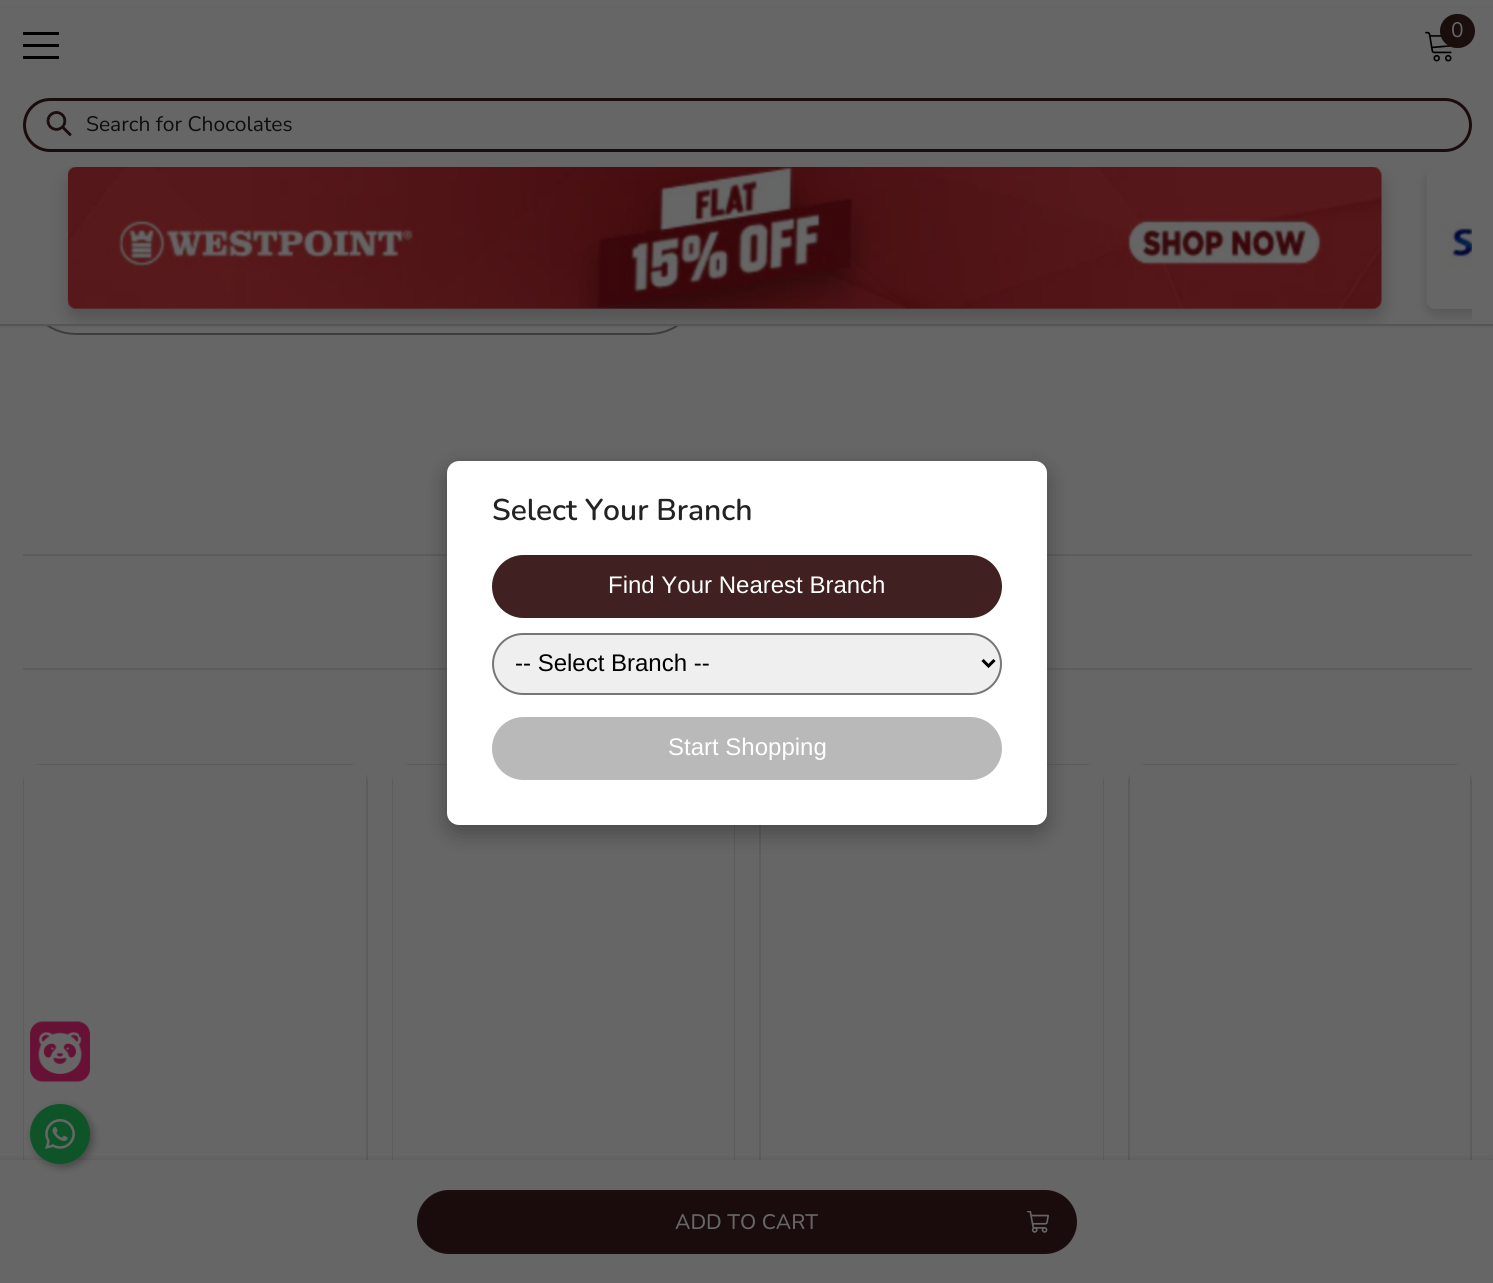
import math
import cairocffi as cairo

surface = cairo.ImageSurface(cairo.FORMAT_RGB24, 1493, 1283)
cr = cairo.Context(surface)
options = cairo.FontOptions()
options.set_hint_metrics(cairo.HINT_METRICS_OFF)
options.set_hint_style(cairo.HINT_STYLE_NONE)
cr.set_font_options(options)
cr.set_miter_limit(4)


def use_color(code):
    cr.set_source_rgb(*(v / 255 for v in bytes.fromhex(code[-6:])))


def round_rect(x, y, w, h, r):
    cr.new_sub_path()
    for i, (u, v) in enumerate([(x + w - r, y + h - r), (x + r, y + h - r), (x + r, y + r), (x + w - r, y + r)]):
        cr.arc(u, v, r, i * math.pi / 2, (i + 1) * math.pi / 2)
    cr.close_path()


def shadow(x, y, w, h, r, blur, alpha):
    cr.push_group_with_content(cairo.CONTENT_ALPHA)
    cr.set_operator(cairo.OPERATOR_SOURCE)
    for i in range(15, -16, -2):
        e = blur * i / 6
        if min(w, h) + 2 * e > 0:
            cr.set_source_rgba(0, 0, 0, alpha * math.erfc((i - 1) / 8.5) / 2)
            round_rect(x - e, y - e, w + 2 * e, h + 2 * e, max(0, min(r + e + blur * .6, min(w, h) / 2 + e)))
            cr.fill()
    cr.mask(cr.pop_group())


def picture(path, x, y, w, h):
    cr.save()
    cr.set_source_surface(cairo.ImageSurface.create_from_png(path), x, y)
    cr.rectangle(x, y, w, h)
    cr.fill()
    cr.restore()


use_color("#666666")
cr.paint()
round_rect(24, -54, 677, 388, 52)
use_color("#3d3d3d")
cr.stroke()
use_color("#666666")
cr.rectangle(23, 0, 679, 8)
cr.fill()
use_color("#5b5b5b")
cr.rectangle(0, 324, 1493, 2)
cr.fill()
use_color("#000000")
shadow(0, 9, 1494, 317, 0, 2, 0.1)
use_color("#666666")
cr.rectangle(0, 8, 1493, 316)
cr.fill()
picture("img1.png", 1425, 31, 27, 31)
gradient = cairo.LinearGradient(1440, 31, 1475, 31)
gradient.add_color_stop_rgba(0, 0.369, 0.153, 0.078, 1)
gradient.add_color_stop_rgba(0.01, 0.102, 0.051, 0.051, 1)
gradient.add_color_stop_rgba(1, 0.102, 0.063, 0.055, 1)
cr.set_source(gradient)
round_rect(1440, 14, 35, 34, 17)
cr.fill()
cr.select_font_face("Nunito")
cr.set_font_size(21)
use_color("#666666")
cr.move_to(1451, 37)
cr.show_text("0")
use_color("#000000")
cr.rectangle(23, 44, 36, 3)
cr.fill()
cr.rectangle(23, 32, 36, 3)
cr.fill()
cr.rectangle(23, 56, 36, 3)
cr.fill()
round_rect(24.5, 99.5, 1446, 51, 25.5)
use_color("#1a0c0c")
cr.set_line_width(3)
cr.stroke()
picture("img2.png", 46, 111, 26, 26)
use_color("#0e0e0e")
cr.move_to(86, 131)
cr.show_text("Search for Chocolates")
cr.save()
cr.rectangle(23, 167, 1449, 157)
cr.clip()
use_color("#000000")
shadow(68, 176, 1314, 142, 9, 9, 0.2)
cr.restore()
picture("img3.png", 68, 167, 1314, 142)
cr.save()
cr.rectangle(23, 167, 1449, 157)
cr.clip()
cr.set_fill_rule(cairo.FILL_RULE_EVEN_ODD)
cr.new_path()
cr.move_to(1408, 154)
cr.line_to(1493, 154)
cr.line_to(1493, 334)
cr.line_to(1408, 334)
cr.close_path()
cr.move_to(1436, 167)
cr.line_to(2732, 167)
cr.curve_to(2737, 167, 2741, 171, 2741, 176)
cr.line_to(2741, 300)
cr.curve_to(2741, 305, 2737, 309, 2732, 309)
cr.line_to(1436, 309)
cr.curve_to(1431, 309, 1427, 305, 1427, 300)
cr.line_to(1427, 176)
cr.curve_to(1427, 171, 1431, 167, 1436, 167)
cr.close_path()
cr.clip()
use_color("#000000")
shadow(1427, 173, 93, 142, 9, 6, 0.15)
cr.restore()
picture("img4.png", 1426, 183, 46, 126)
use_color("#5d5d5d")
cr.rectangle(23, 668, 1449, 2)
cr.fill()
round_rect(24, 765, 343, 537, 17)
use_color("#5c5c5c")
cr.set_line_width(2)
cr.stroke()
use_color("#666666")
cr.rectangle(24, 765, 342, 395)
cr.fill()
round_rect(393, 765, 341, 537, 17)
use_color("#5c5c5c")
cr.stroke()
use_color("#666666")
cr.rectangle(393, 765, 341, 395)
cr.fill()
round_rect(760, 765, 343, 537, 17)
use_color("#5c5c5c")
cr.stroke()
use_color("#666666")
cr.rectangle(761, 765, 342, 395)
cr.fill()
round_rect(1129, 765, 342, 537, 17)
use_color("#5c5c5c")
cr.stroke()
use_color("#666666")
cr.rectangle(1130, 765, 340, 14)
cr.fill()
use_color("#5c5c5c")
cr.rectangle(23, 554, 1449, 2)
cr.fill()
use_color("#000000")
shadow(0, 1166, 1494, 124, 0, 4.5, 0.9)
use_color("#666666")
cr.rectangle(0, 1160, 1493, 123)
cr.fill()
use_color("#1a0c0c")
round_rect(418, 1191, 658, 62, 31)
cr.fill_preserve()
use_color("#1a0d0d")
cr.stroke()
cr.select_font_face("Nunito Medium")
use_color("#666666")
cr.move_to(675, 1229)
cr.show_text("ADD TO CART")
picture("img5.png", 1027, 1211, 22, 22)
use_color("#000000")
shadow(447, 468, 600, 365, 12, 11, 0.3)
use_color("#ffffff")
round_rect(447, 461, 600, 364, 12)
cr.fill()
cr.select_font_face("Nunito SemiBold")
cr.set_font_size(30)
use_color("#232323")
cr.move_to(492, 520)
cr.show_text("Select Your Branch")
use_color("#402020")
round_rect(492, 555, 510, 63, 31.5)
cr.fill()
cr.select_font_face("Liberation Sans")
cr.set_font_size(24)
use_color("#ffffff")
cr.move_to(608, 593)
cr.show_text("Find Your Nearest Branch")
use_color("#efefef")
round_rect(493, 634, 508, 60, 30)
cr.fill_preserve()
use_color("#767676")
cr.stroke()
cr.new_path()
cr.move_to(982.5, 660)
cr.line_to(988.5, 666)
cr.line_to(994.5, 660)
use_color("#000000")
cr.set_line_width(3)
cr.stroke()
cr.move_to(515, 671)
cr.show_text("-- Select Branch --")
use_color("#b9b9b9")
round_rect(492, 717, 510, 63, 31.5)
cr.fill()
use_color("#ffffff")
cr.move_to(668, 755)
cr.show_text("Start Shopping")
picture("img6.png", 30, 1021, 60, 61)
use_color("#000000")
shadow(33, 1107, 60, 60, 30, 4, 0.3)
use_color("#0f5429")
cr.arc(60, 1134, 30, 0, 2 * math.pi)
cr.fill()
picture("img7.png", 45, 1119, 30, 30)
surface.write_to_png("result.png")
